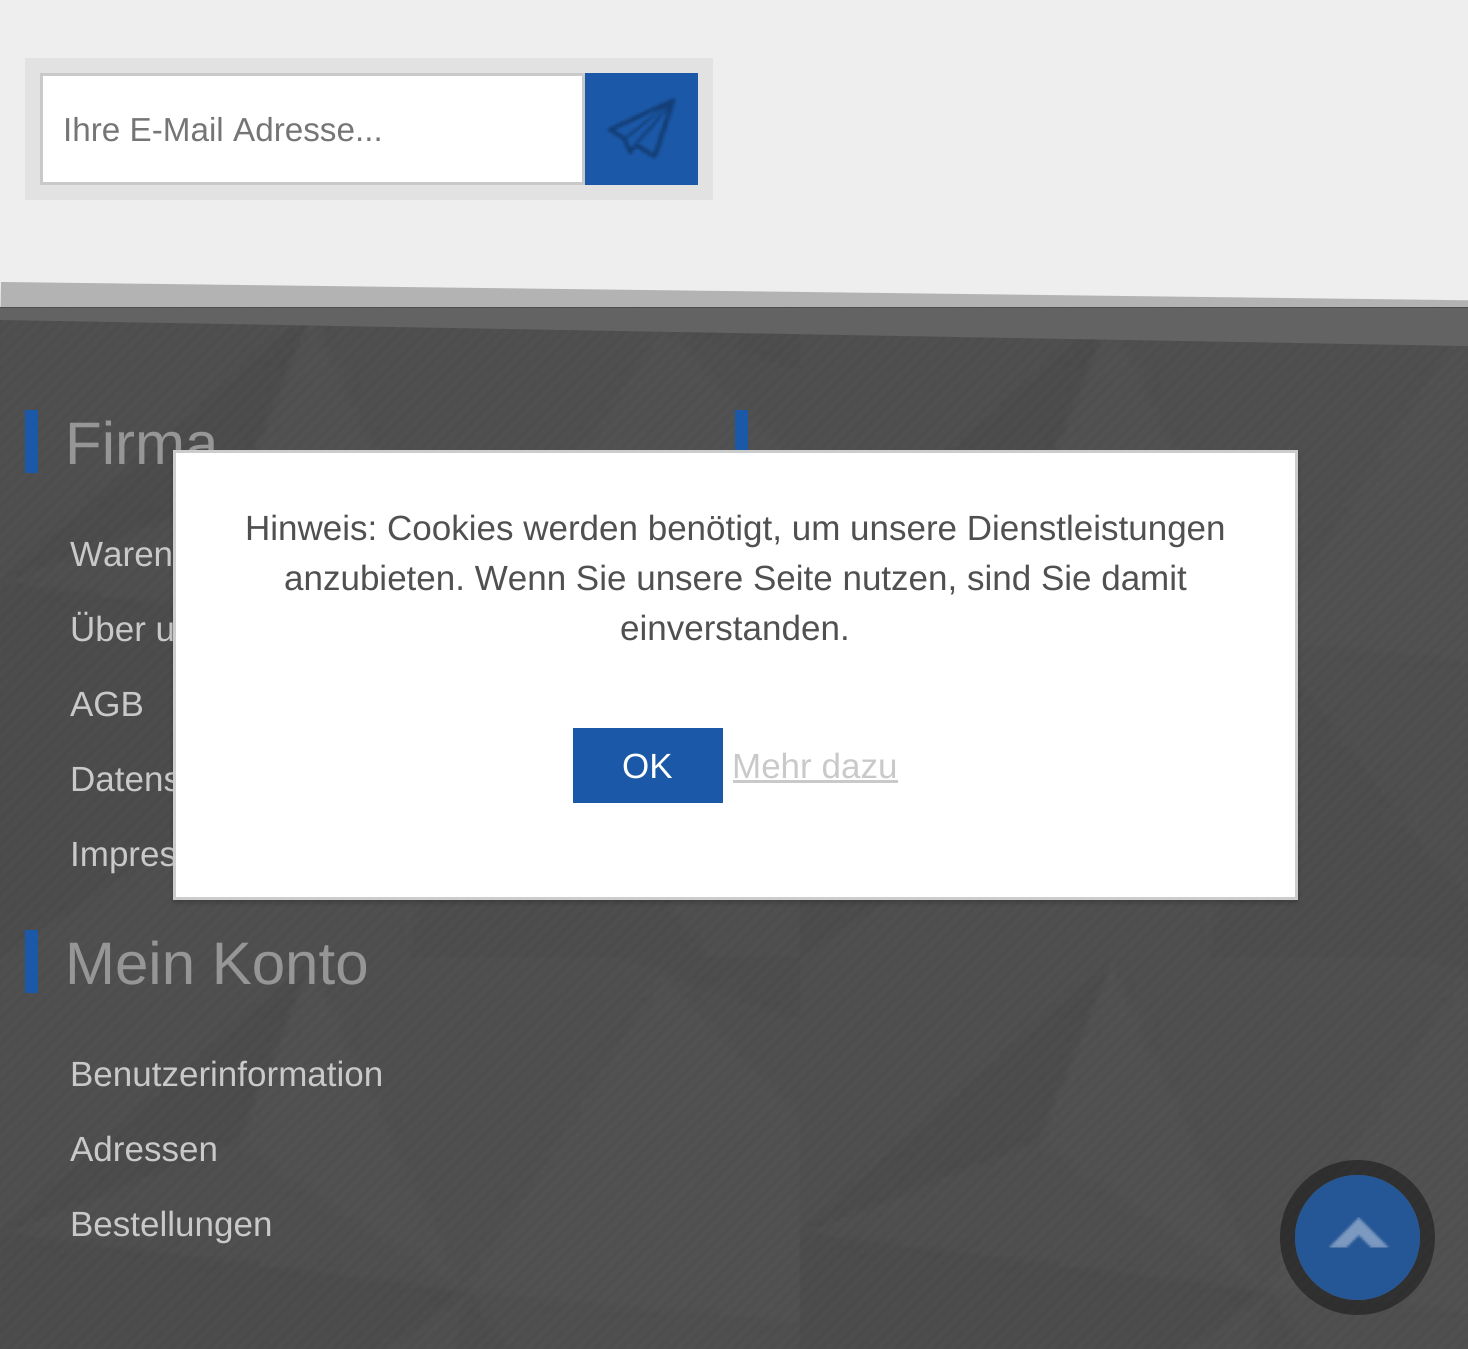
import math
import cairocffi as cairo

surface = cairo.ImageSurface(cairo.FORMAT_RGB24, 1468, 1349)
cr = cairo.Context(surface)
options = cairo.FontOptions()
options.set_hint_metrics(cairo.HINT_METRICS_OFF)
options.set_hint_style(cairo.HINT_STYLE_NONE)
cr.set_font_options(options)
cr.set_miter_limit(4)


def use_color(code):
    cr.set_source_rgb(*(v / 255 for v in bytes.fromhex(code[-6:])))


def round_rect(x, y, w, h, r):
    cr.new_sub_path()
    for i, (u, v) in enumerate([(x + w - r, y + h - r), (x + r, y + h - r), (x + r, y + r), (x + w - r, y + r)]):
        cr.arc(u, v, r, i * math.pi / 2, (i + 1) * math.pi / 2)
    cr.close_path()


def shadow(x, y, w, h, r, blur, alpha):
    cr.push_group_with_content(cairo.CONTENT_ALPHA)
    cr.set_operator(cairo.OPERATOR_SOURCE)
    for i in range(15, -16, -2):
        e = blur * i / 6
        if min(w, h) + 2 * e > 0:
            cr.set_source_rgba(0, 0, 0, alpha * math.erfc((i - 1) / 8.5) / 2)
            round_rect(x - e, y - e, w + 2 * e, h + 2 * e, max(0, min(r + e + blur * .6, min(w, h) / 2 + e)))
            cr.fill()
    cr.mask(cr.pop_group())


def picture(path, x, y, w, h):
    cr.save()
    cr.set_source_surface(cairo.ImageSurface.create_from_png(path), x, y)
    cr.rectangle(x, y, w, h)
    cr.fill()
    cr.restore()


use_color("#eeeeee")
cr.paint()
use_color("#e2e2e2")
cr.rectangle(25, 58, 688, 142)
cr.fill()
use_color("#ffffff")
cr.rectangle(41.5, 74.5, 542, 109)
cr.fill_preserve()
use_color("#c9c9c9")
cr.set_line_width(3)
cr.stroke()
cr.select_font_face("Liberation Sans")
cr.set_font_size(33.25)
use_color("#757575")
cr.move_to(63, 141)
cr.show_text("Ihre E-Mail Adresse...")
use_color("#1b58a7")
cr.rectangle(585, 73, 113, 112)
cr.fill()
picture("img1.png", 605, 97, 73, 63)
use_color("#b3b3b3")
cr.new_path()
cr.move_to(1, 282)
cr.line_to(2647, 315)
cr.line_to(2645, 440)
cr.line_to(-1, 407)
cr.close_path()
cr.fill()
picture("img2.png", 0, 307, 1468, 1042)
cr.save()
cr.rectangle(0, 308, 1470, 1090)
cr.clip()
use_color("#636363")
cr.new_path()
cr.move_to(1, 195)
cr.line_to(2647, 242)
cr.line_to(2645, 367)
cr.line_to(-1, 320)
cr.close_path()
cr.fill()
cr.restore()
use_color("#1b58a7")
cr.rectangle(25, 410, 13, 63)
cr.fill()
cr.set_font_size(60)
use_color("#969696")
cr.move_to(65, 464)
cr.show_text("Firma")
cr.set_font_size(35)
use_color("#c9c9c9")
cr.move_to(70, 566)
cr.show_text("Waren")
cr.move_to(70, 641)
cr.show_text("Über u")
cr.move_to(70, 716)
cr.show_text("AGB")
cr.move_to(70, 791)
cr.show_text("Datens")
cr.move_to(70, 866)
cr.show_text("Impres")
use_color("#1b58a7")
cr.rectangle(735, 410, 13, 40)
cr.fill()
use_color("#000000")
shadow(173, 453, 1125, 450, 0, 2.5, 0.2)
use_color("#ffffff")
cr.rectangle(174.5, 451.5, 1122, 447)
cr.fill_preserve()
use_color("#cccccc")
cr.stroke()
use_color("#505050")
cr.move_to(245, 540)
cr.show_text("Hinweis: Cookies werden benötigt, um unsere Dienstleistungen")
cr.move_to(284, 590)
cr.show_text("anzubieten. Wenn Sie unsere Seite nutzen, sind Sie damit")
cr.move_to(620, 640)
cr.show_text("einverstanden.")
use_color("#1b58a7")
cr.rectangle(573, 728, 150, 75)
cr.fill()
use_color("#ffffff")
cr.move_to(622, 778)
cr.show_text("OK")
use_color("#c9c9c9")
cr.move_to(732, 778)
cr.show_text("Mehr dazu")
cr.rectangle(733, 780, 165, 3)
cr.fill()
cr.move_to(70, 1086)
cr.show_text("Benutzerinformation")
cr.move_to(70, 1161)
cr.show_text("Adressen")
cr.move_to(70, 1236)
cr.show_text("Bestellungen")
cr.new_path()
cr.arc(1357.5, 1237.5, 70, 0, 2 * math.pi)
cr.set_source_rgba(0, 0, 0, 0.4)
cr.set_line_width(15)
cr.stroke()
cr.set_source_rgba(0.106, 0.345, 0.655, 0.8)
cr.arc(1357.5, 1237.5, 62.5, 0, 2 * math.pi)
cr.fill()
picture("img3.png", 1328, 1217, 62, 31)
use_color("#1b58a7")
cr.rectangle(25, 930, 13, 63)
cr.fill()
cr.set_font_size(60)
use_color("#969696")
cr.move_to(65, 984)
cr.show_text("Mein Konto")
surface.write_to_png("result.png")
